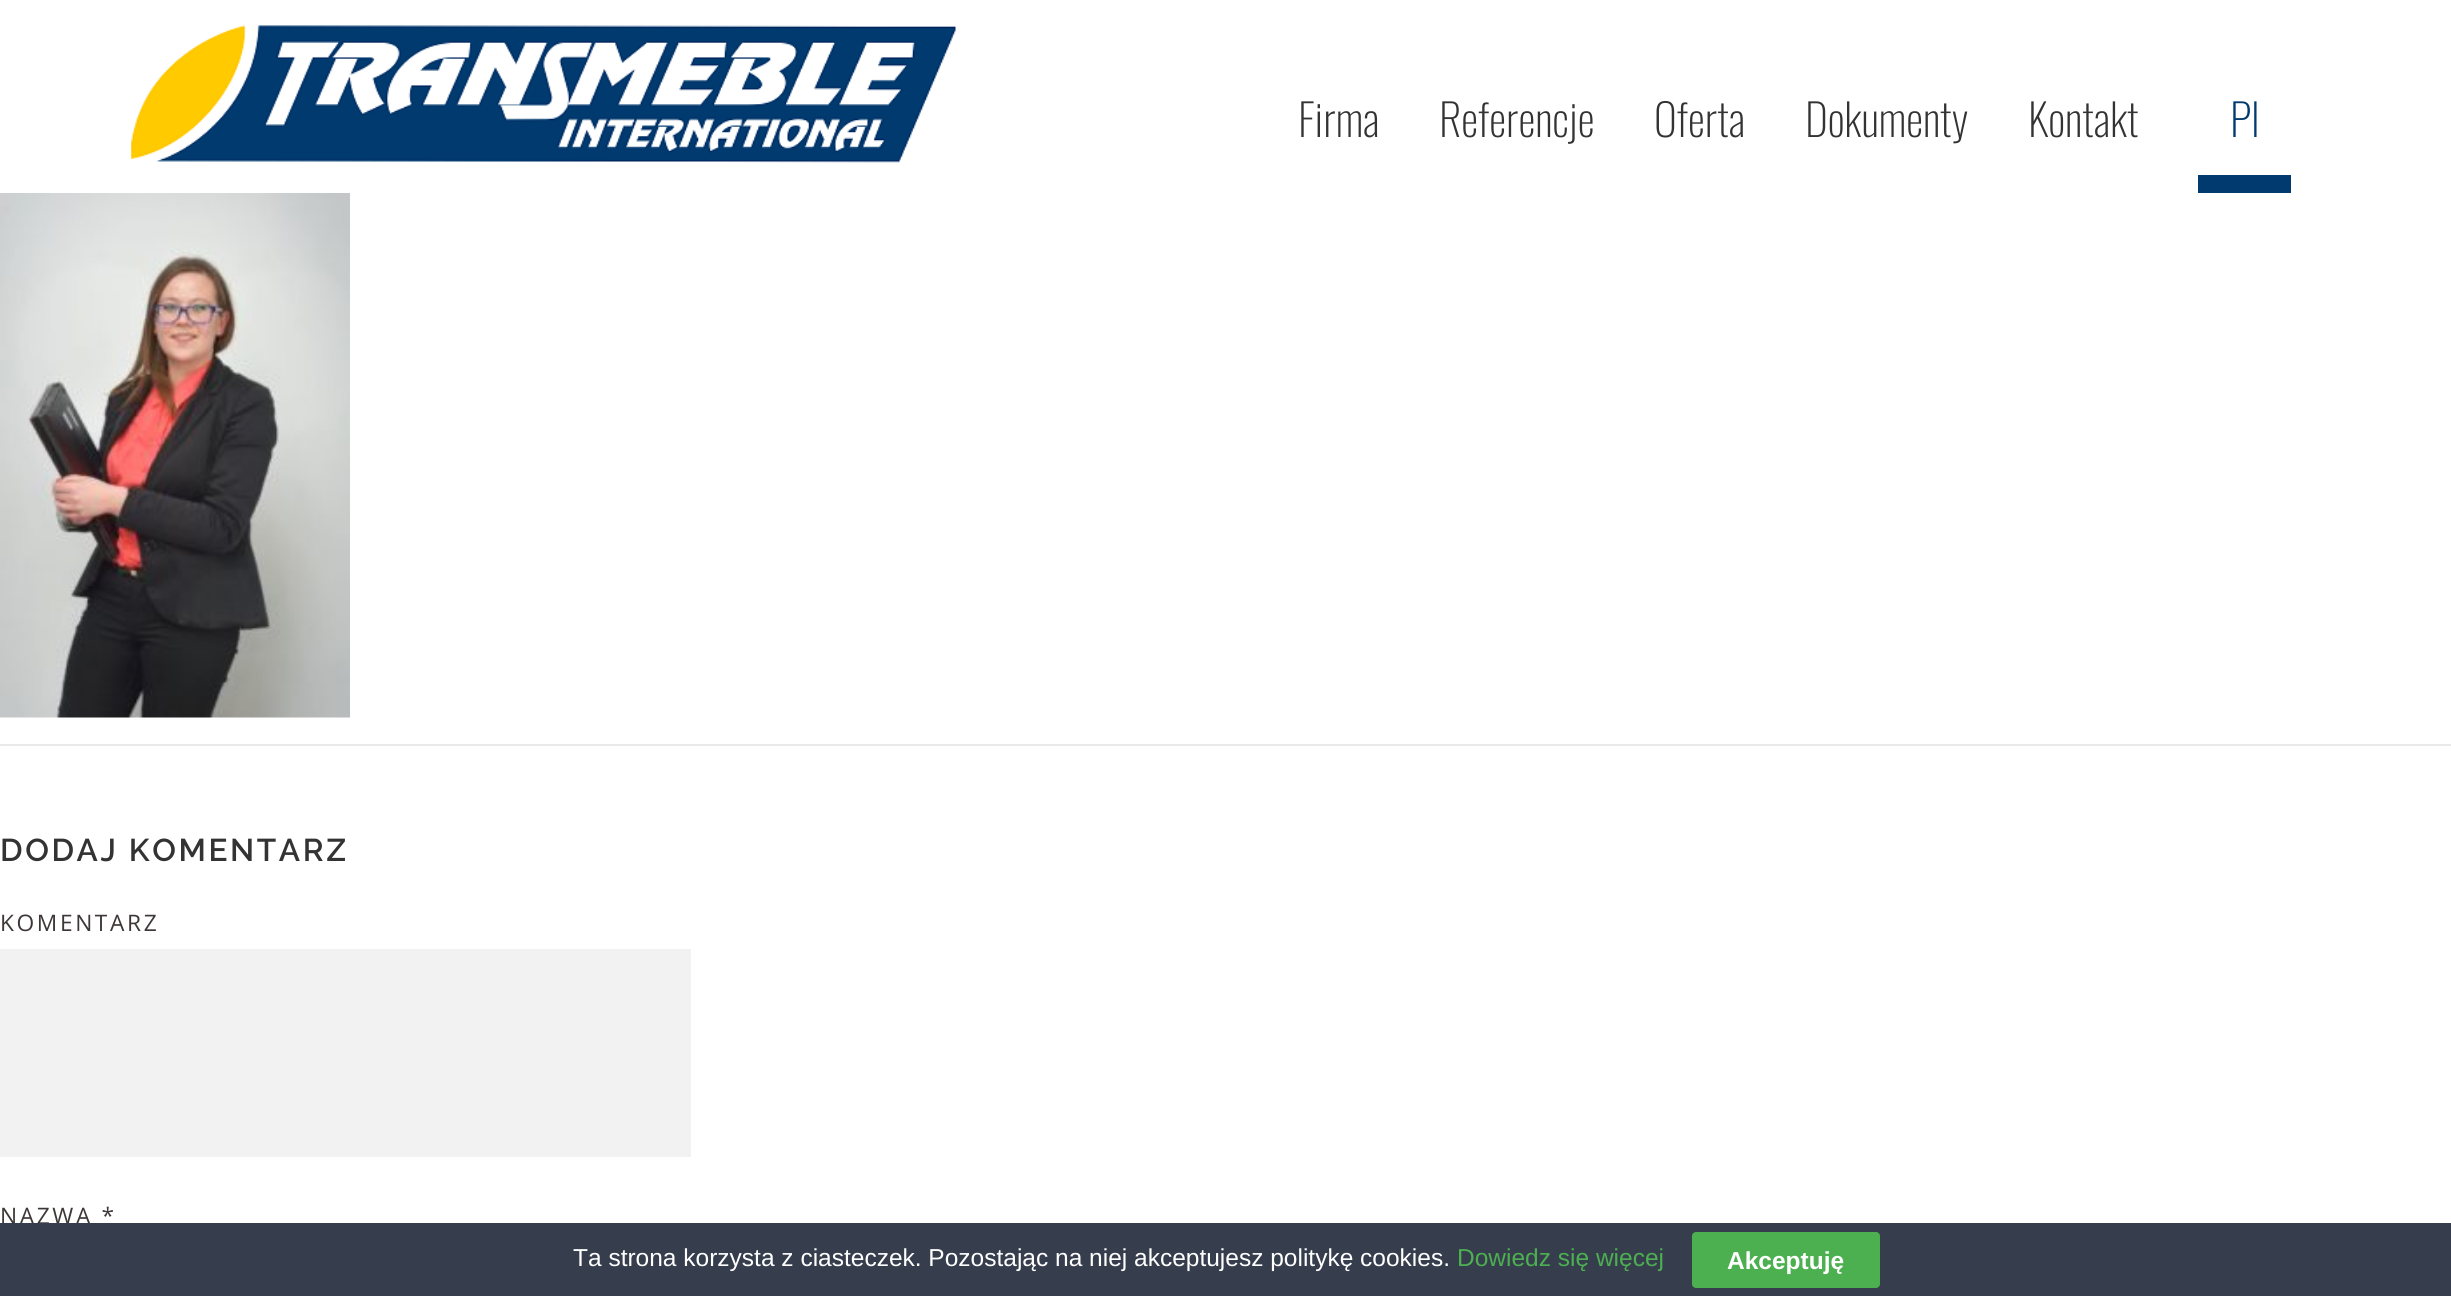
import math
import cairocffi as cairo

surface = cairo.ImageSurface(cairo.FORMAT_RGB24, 2451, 1296)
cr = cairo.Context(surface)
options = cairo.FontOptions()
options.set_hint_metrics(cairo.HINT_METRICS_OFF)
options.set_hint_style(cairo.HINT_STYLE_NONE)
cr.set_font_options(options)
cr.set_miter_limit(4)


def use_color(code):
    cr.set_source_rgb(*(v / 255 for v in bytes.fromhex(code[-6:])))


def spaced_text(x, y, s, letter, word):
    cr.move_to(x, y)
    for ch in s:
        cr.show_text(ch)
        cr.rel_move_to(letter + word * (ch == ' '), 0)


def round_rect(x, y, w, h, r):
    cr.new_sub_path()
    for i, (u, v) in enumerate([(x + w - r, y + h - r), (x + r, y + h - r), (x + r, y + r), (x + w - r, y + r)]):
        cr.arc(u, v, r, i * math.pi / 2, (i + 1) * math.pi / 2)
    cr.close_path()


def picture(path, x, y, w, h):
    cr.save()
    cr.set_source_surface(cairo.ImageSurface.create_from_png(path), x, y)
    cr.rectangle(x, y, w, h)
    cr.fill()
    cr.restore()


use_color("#ffffff")
cr.paint()
picture("img1.png", 131, 25, 825, 138)
cr.select_font_face("Oswald ExtraLight")
cr.set_font_size(44)
use_color("#333333")
cr.move_to(1298, 137)
cr.show_text("Firma")
cr.move_to(1439, 137)
cr.show_text("Referencje")
cr.move_to(1654, 137)
cr.show_text("Oferta")
cr.move_to(1805, 137)
cr.show_text("Dokumenty")
cr.move_to(2028, 137)
cr.show_text("Kontakt")
use_color("#003a6e")
cr.rectangle(2198, 175, 93, 18)
cr.fill()
cr.move_to(2230, 137)
cr.show_text("Pl")
picture("img2.png", 0, 193, 350, 525)
use_color("#e9e9e9")
cr.rectangle(0, 744, 2451, 2)
cr.fill()
cr.select_font_face("Raleway SemiBold")
cr.set_font_size(31.5)
use_color("#333333")
spaced_text(0, 861, "DODAJ KOMENTARZ", 2.6, 0)
cr.select_font_face("Open Sans")
cr.set_font_size(22.75)
use_color("#3e3737")
spaced_text(0, 931, "KOMENTARZ", 2.6, 0)
use_color("#f2f2f2")
cr.rectangle(0, 949, 691, 208)
cr.fill()
use_color("#3e3737")
spaced_text(0, 1224, "NAZWA *", 2.6, 0)
use_color("#363d4d")
cr.rectangle(0, 1223, 2451, 73)
cr.fill()
cr.select_font_face("Liberation Sans")
cr.set_font_size(24.5)
use_color("#ffffff")
cr.move_to(573, 1266)
cr.show_text("Ta strona korzysta z ciasteczek. Pozostając na niej akceptujesz politykę cookies.")
use_color("#4caf50")
cr.move_to(1457, 1266)
cr.show_text("Dowiedz się więcej")
round_rect(1692, 1232, 188, 56, 4)
cr.fill()
cr.select_font_face("Liberation Sans", cairo.FONT_SLANT_NORMAL, cairo.FONT_WEIGHT_BOLD)
use_color("#ffffff")
cr.move_to(1727, 1269)
cr.show_text("Akceptuję")
surface.write_to_png("result.png")
